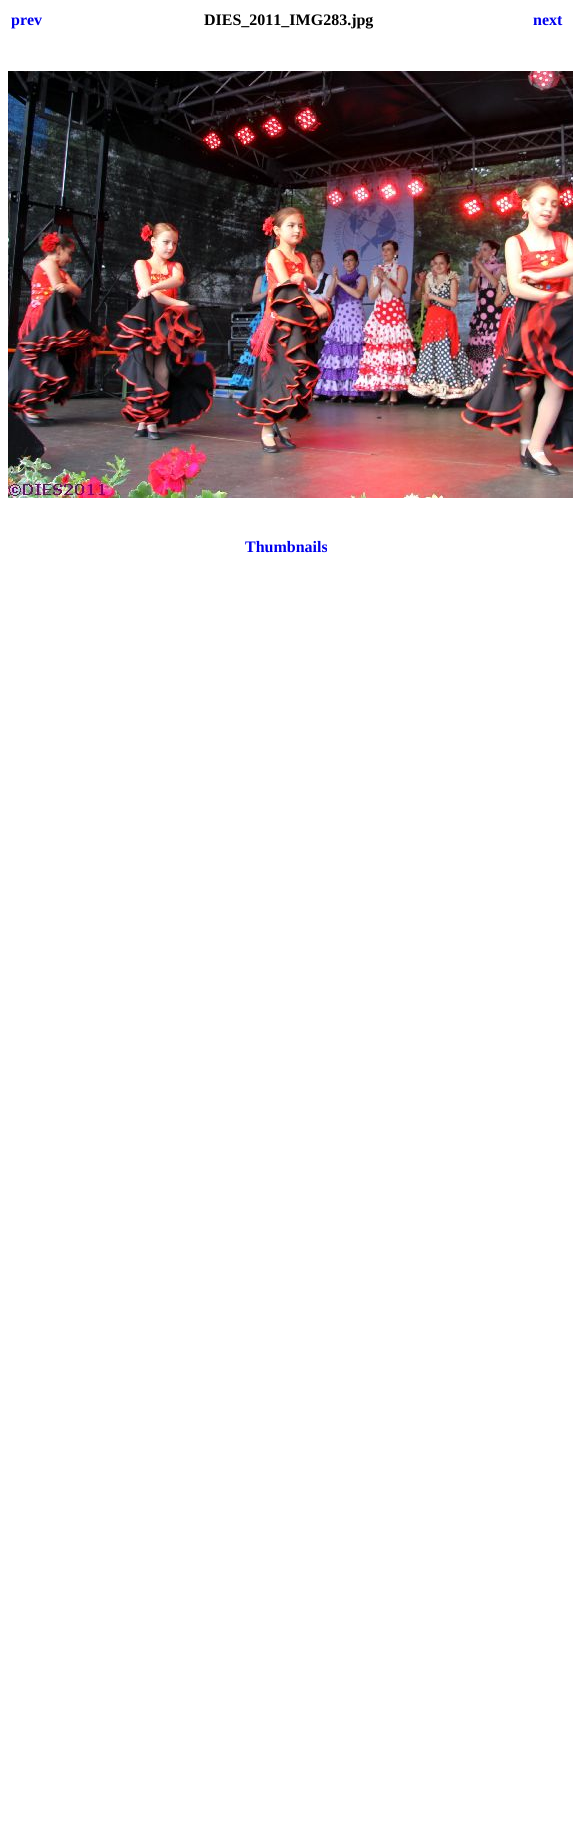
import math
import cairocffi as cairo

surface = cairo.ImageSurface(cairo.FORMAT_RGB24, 573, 1821)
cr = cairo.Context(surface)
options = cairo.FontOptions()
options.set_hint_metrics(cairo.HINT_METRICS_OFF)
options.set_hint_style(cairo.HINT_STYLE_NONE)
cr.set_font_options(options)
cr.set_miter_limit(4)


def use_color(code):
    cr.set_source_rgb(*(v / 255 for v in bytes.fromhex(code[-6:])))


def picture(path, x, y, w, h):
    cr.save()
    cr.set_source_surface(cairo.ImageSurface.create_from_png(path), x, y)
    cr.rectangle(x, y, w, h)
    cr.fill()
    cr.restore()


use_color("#ffffff")
cr.paint()
cr.select_font_face("Liberation Serif", cairo.FONT_SLANT_NORMAL, cairo.FONT_WEIGHT_BOLD)
cr.set_font_size(16)
use_color("#0000ee")
cr.move_to(11, 25)
cr.show_text("prev")
use_color("#000000")
cr.move_to(204, 25)
cr.show_text("DIES_2011_IMG283.jpg")
use_color("#0000ee")
cr.move_to(533, 25)
cr.show_text("next")
picture("img1.png", 8, 71, 565, 427)
cr.move_to(245, 552)
cr.show_text("Thumbnails")
surface.write_to_png("result.png")
